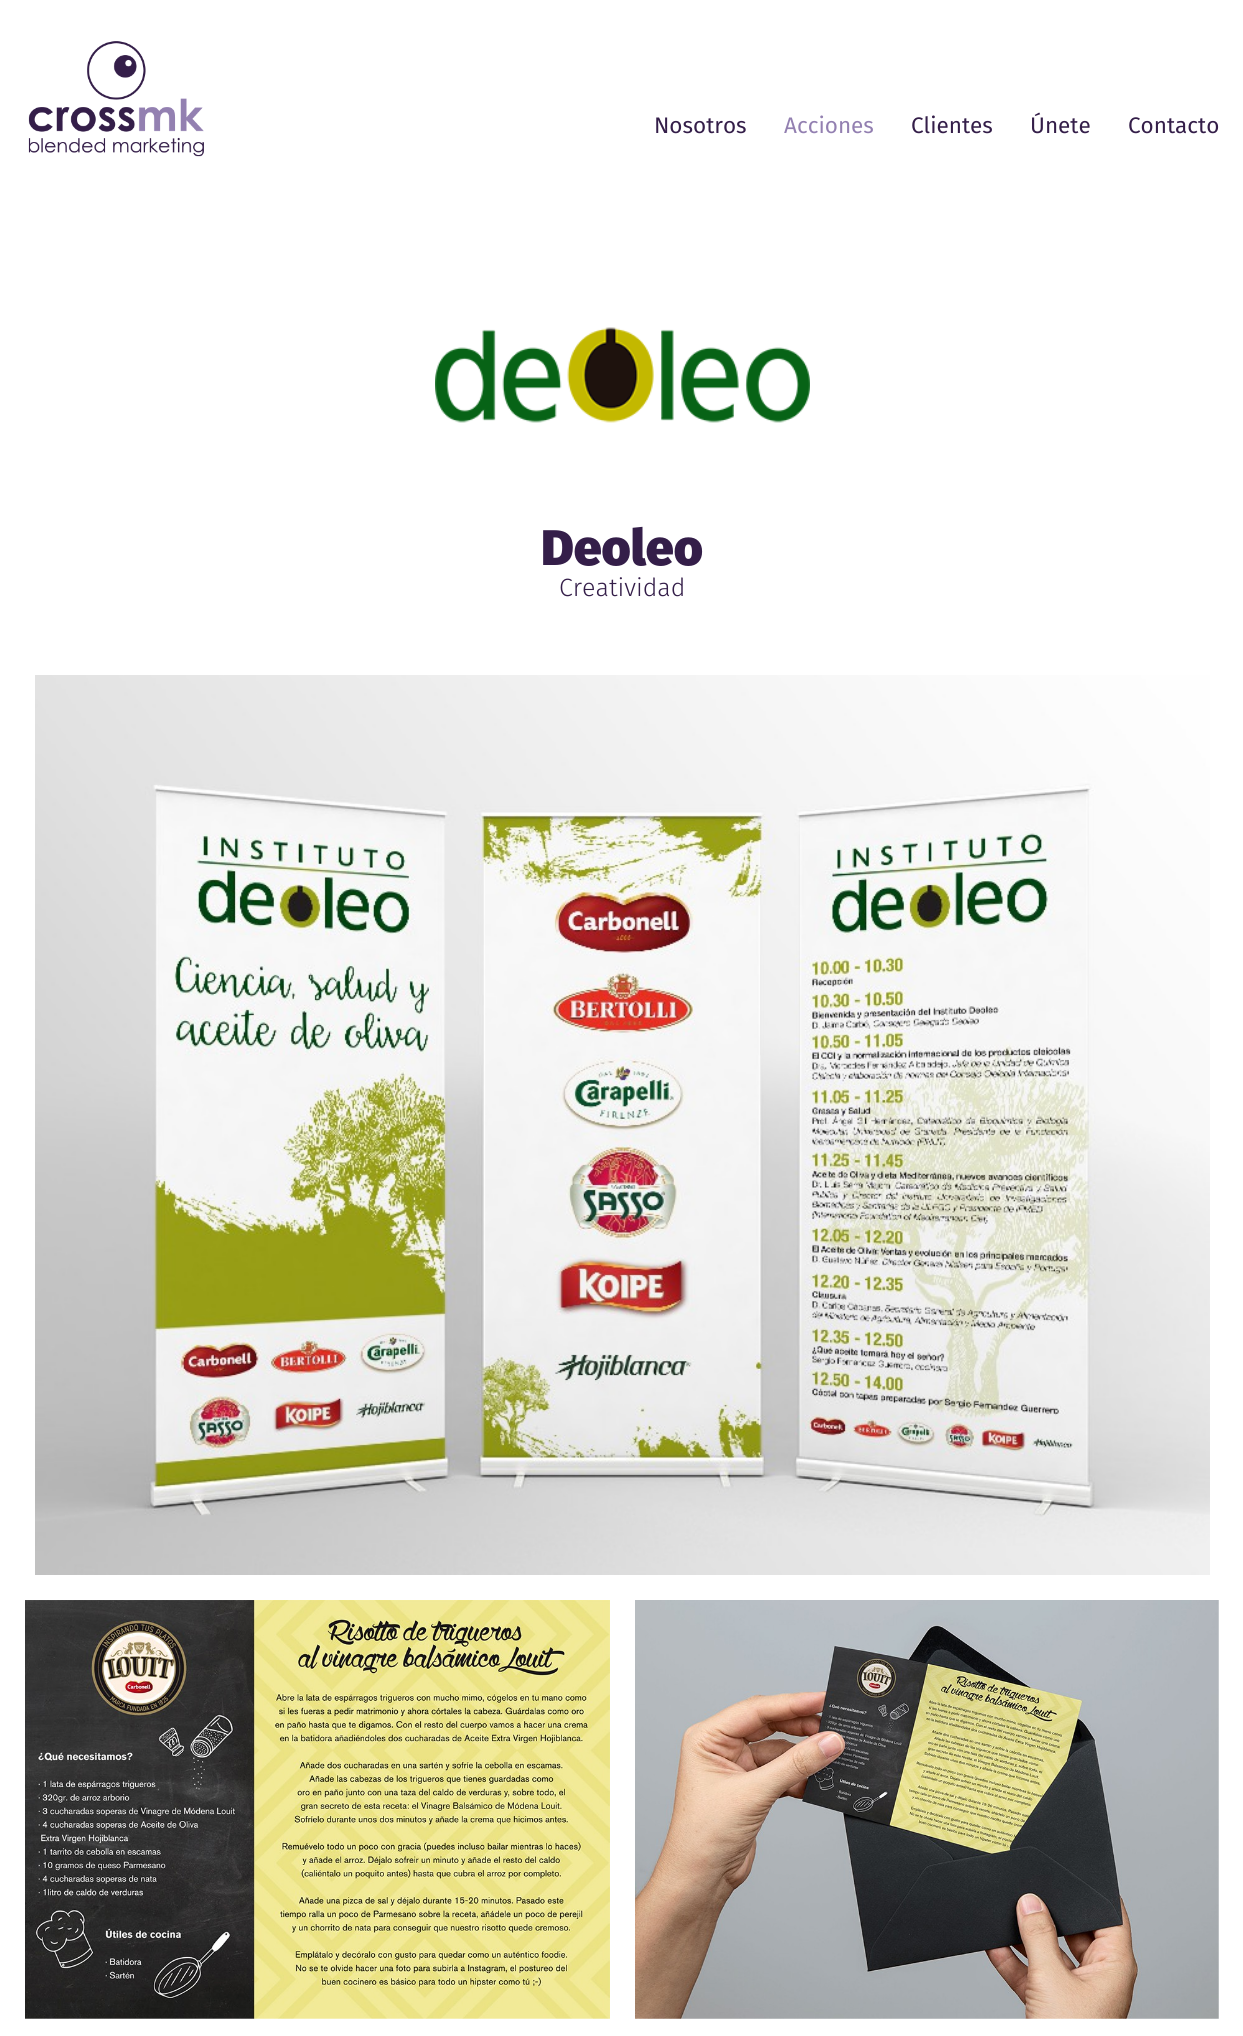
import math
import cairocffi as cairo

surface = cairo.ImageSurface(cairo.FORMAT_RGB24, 1243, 2036)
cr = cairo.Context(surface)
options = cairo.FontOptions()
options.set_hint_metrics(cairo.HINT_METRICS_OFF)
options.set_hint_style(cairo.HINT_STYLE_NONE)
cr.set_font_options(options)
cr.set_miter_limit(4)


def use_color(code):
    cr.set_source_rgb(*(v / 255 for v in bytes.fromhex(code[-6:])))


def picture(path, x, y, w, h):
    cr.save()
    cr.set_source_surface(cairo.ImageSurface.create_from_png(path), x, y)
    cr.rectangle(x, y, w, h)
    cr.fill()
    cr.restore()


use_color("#ffffff")
cr.paint()
picture("img1.png", 28, 41, 176, 116)
cr.select_font_face("Fira Sans")
cr.set_font_size(22.5)
use_color("#341e49")
cr.move_to(654, 133)
cr.show_text("Nosotros")
use_color("#9380b1")
cr.move_to(784, 133)
cr.show_text("Acciones")
use_color("#341e49")
cr.move_to(911, 133)
cr.show_text("Clientes")
cr.move_to(1030, 133)
cr.show_text("Únete")
cr.move_to(1128, 133)
cr.show_text("Contacto")
picture("img2.png", 435, 327, 375, 96)
cr.select_font_face("Fira Sans Black")
cr.set_font_size(50)
cr.move_to(541, 565)
cr.show_text("Deoleo")
cr.select_font_face("Fira Sans Light")
cr.set_font_size(25)
cr.move_to(559, 596)
cr.show_text("Creatividad")
picture("img3.png", 35, 675, 1175, 900)
picture("img4.png", 25, 1600, 585, 419)
picture("img5.png", 635, 1600, 584, 419)
surface.write_to_png("result.png")
